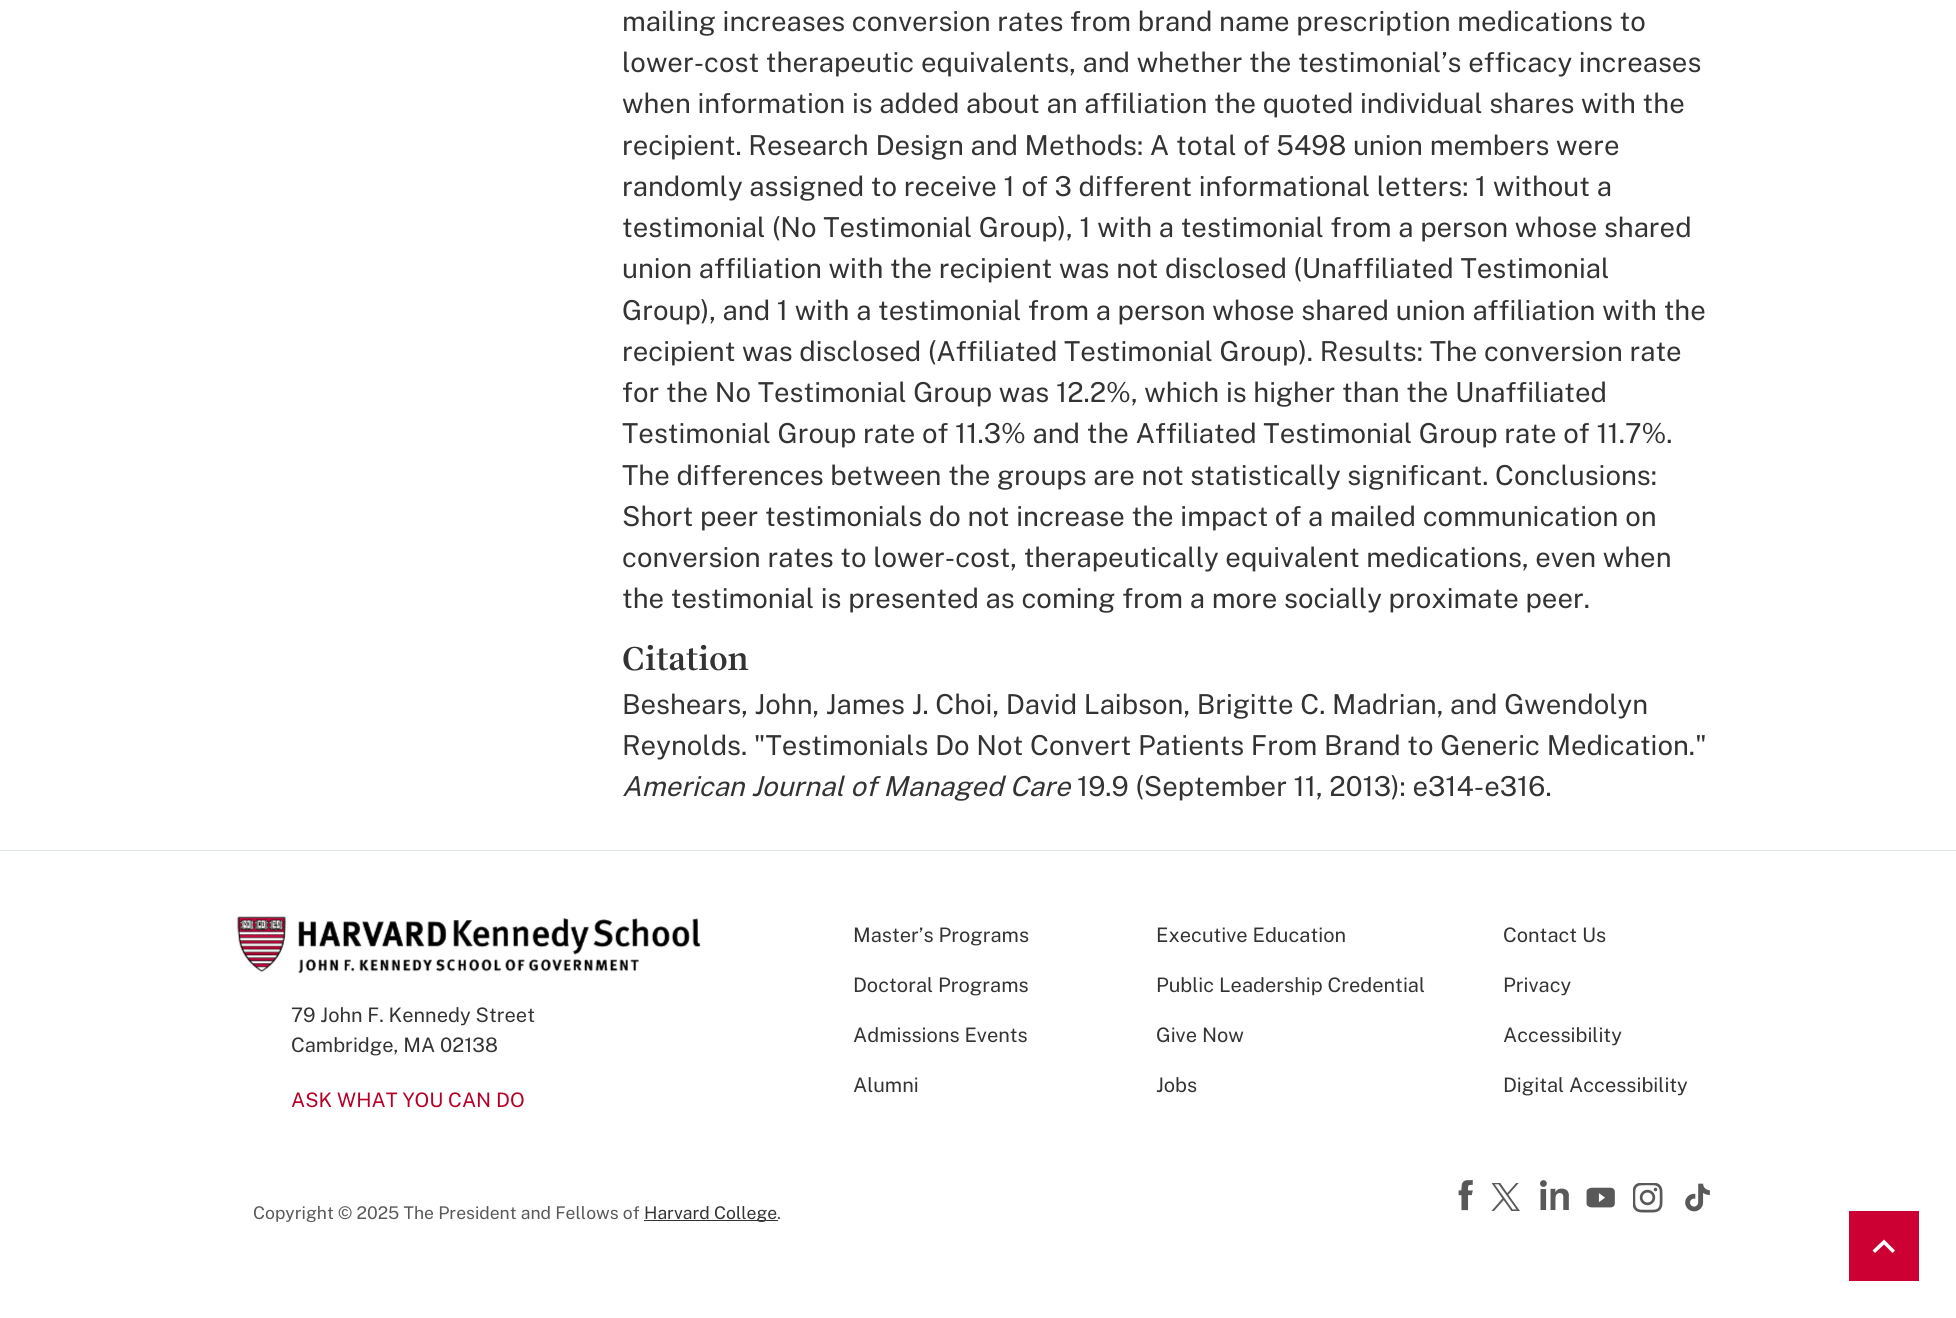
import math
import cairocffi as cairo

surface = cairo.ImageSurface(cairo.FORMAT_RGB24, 1956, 1318)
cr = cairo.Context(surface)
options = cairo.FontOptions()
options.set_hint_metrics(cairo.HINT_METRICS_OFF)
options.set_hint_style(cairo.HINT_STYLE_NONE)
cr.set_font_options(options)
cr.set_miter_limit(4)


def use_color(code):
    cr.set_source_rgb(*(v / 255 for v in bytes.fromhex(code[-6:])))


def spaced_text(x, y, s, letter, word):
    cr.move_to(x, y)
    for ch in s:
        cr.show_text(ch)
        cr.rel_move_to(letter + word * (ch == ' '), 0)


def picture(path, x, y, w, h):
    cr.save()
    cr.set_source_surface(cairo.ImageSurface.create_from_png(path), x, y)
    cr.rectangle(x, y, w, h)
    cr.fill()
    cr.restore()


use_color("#ffffff")
cr.paint()
cr.select_font_face("Public Sans Thin")
cr.set_font_size(27.5)
use_color("#333333")
cr.move_to(622, 31)
cr.show_text("mailing increases conversion rates from brand name prescription medications to")
cr.move_to(622, 72)
cr.show_text("lower-cost therapeutic equivalents, and whether the testimonial’s efficacy increases")
cr.move_to(622, 113)
cr.show_text("when information is added about an affiliation the quoted individual shares with the")
cr.move_to(622, 155)
cr.show_text("recipient. Research Design and Methods: A total of 5498 union members were")
cr.move_to(622, 196)
cr.show_text("randomly assigned to receive 1 of 3 different informational letters: 1 without a")
cr.move_to(622, 237)
cr.show_text("testimonial (No Testimonial Group), 1 with a testimonial from a person whose shared")
cr.move_to(622, 278)
cr.show_text("union affiliation with the recipient was not disclosed (Unaffiliated Testimonial")
cr.move_to(622, 320)
cr.show_text("Group), and 1 with a testimonial from a person whose shared union affiliation with the")
cr.move_to(622, 361)
cr.show_text("recipient was disclosed (Affiliated Testimonial Group). Results: The conversion rate")
cr.move_to(622, 402)
cr.show_text("for the No Testimonial Group was 12.2%, which is higher than the Unaffiliated")
cr.move_to(622, 443)
cr.show_text("Testimonial Group rate of 11.3% and the Affiliated Testimonial Group rate of 11.7%.")
cr.move_to(622, 485)
cr.show_text("The differences between the groups are not statistically significant. Conclusions:")
cr.move_to(622, 526)
cr.show_text("Short peer testimonials do not increase the impact of a mailed communication on")
cr.move_to(622, 567)
cr.show_text("conversion rates to lower-cost, therapeutically equivalent medications, even when")
cr.move_to(622, 608)
cr.show_text("the testimonial is presented as coming from a more socially proximate peer.")
cr.select_font_face("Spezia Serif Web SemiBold")
cr.set_font_size(32.5)
spaced_text(622, 670, "Citation", -0.5, 0)
cr.select_font_face("Public Sans Thin")
cr.set_font_size(27.5)
cr.move_to(622, 714)
cr.show_text("Beshears, John, James J. Choi, David Laibson, Brigitte C. Madrian, and Gwendolyn")
cr.move_to(622, 755)
cr.show_text("Reynolds. \"Testimonials Do Not Convert Patients From Brand to Generic Medication.\"")
cr.select_font_face("Public Sans Thin", cairo.FONT_SLANT_ITALIC)
cr.move_to(622, 796)
cr.show_text("American Journal of Managed Care")
cr.select_font_face("Public Sans Thin")
cr.move_to(1077, 796)
cr.show_text("19.9 (September 11, 2013): e314-e316.")
use_color("#dee5e9")
cr.rectangle(0, 850, 1956, 1)
cr.fill()
picture("img1.png", 236, 916, 465, 58)
cr.set_font_size(20)
use_color("#333333")
cr.move_to(291, 1022)
cr.show_text("79 John F. Kennedy Street")
cr.move_to(291, 1052)
cr.show_text("Cambridge, MA 02138")
use_color("#b50027")
cr.move_to(291, 1107)
cr.show_text("ASK WHAT YOU CAN DO")
use_color("#333333")
cr.move_to(853, 942)
cr.show_text("Master’s Programs")
cr.move_to(1156, 942)
cr.show_text("Executive Education")
cr.move_to(853, 992)
cr.show_text("Doctoral Programs")
cr.move_to(1156, 992)
cr.show_text("Public Leadership Credential")
cr.move_to(853, 1042)
cr.show_text("Admissions Events")
cr.move_to(1156, 1042)
cr.show_text("Give Now")
cr.move_to(853, 1092)
cr.show_text("Alumni")
cr.move_to(1156, 1092)
cr.show_text("Jobs")
cr.move_to(1503, 942)
cr.show_text("Contact Us")
cr.move_to(1503, 992)
cr.show_text("Privacy")
cr.move_to(1503, 1042)
cr.show_text("Accessibility")
cr.move_to(1503, 1092)
cr.show_text("Digital Accessibility")
cr.set_font_size(17.5)
use_color("#595959")
cr.move_to(253, 1219)
cr.show_text("Copyright © 2025 The President and Fellows of")
use_color("#333333")
cr.rectangle(644, 1220, 134, 1)
cr.fill()
cr.move_to(644, 1219)
cr.show_text("Harvard College")
use_color("#595959")
cr.move_to(777, 1219)
cr.show_text(".")
picture("img2.png", 1458, 1180, 15, 31)
picture("img3.png", 1491, 1183, 29, 28)
picture("img4.png", 1540, 1180, 29, 30)
picture("img5.png", 1586, 1187, 29, 21)
picture("img6.png", 1633, 1183, 30, 30)
picture("img7.png", 1685, 1183, 25, 29)
use_color("#cc0033")
cr.rectangle(1849, 1211, 70, 70)
cr.fill()
use_color("#ffffff")
cr.new_path()
cr.move_to(1884, 1244.5)
cr.line_to(1875, 1253)
cr.line_to(1872.5, 1250.5)
cr.line_to(1884, 1239.5)
cr.line_to(1895, 1250.5)
cr.line_to(1892.5, 1253)
cr.close_path()
cr.fill()
surface.write_to_png("result.png")
